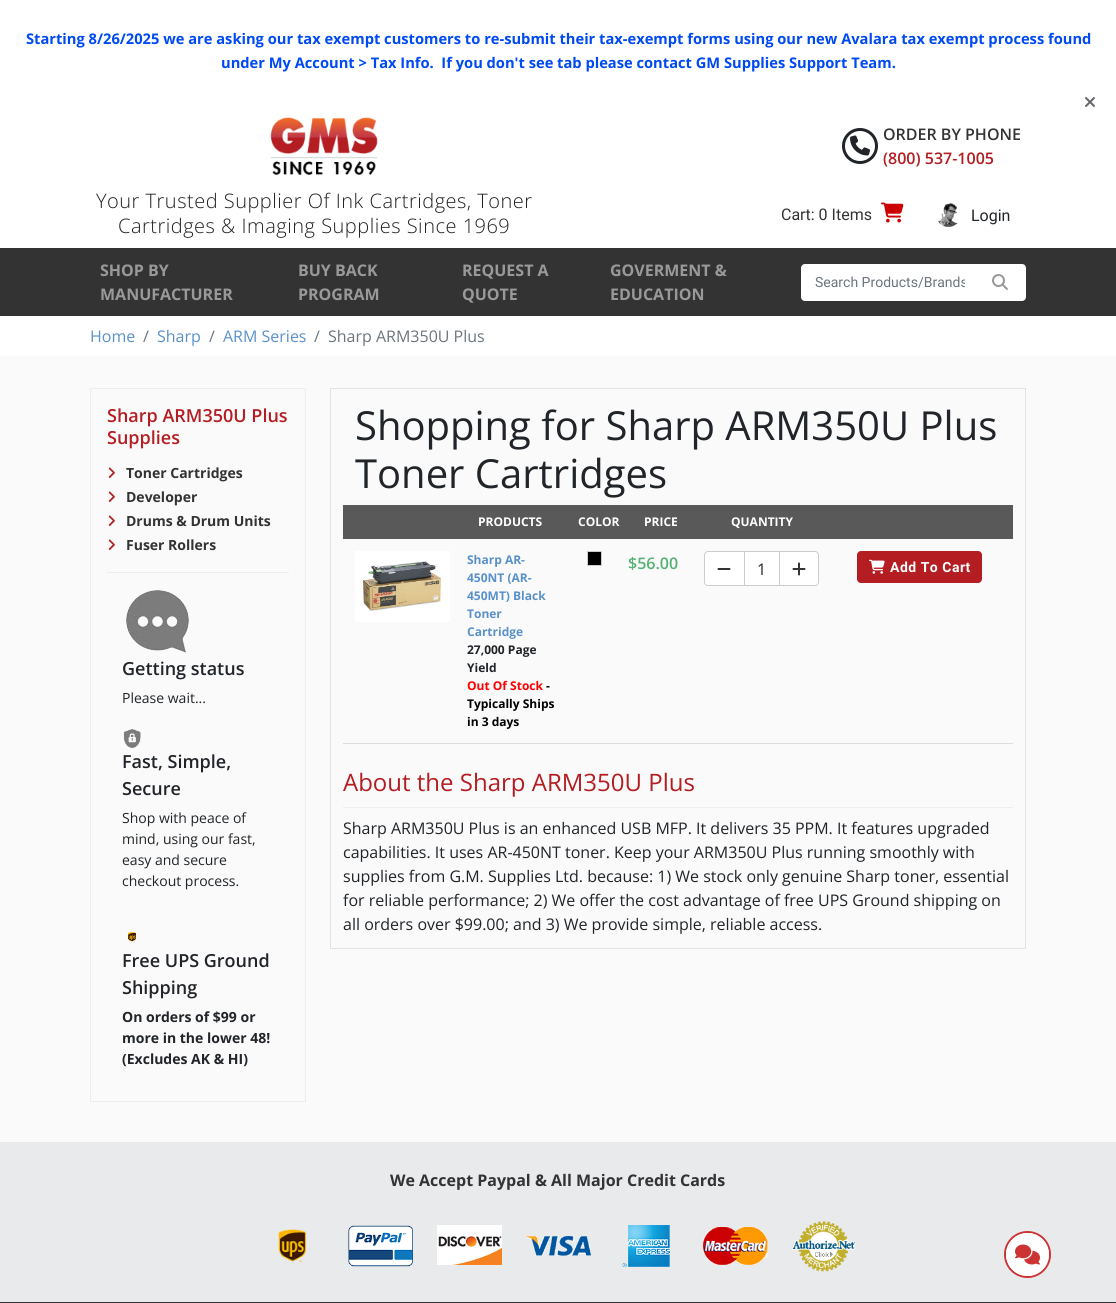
import math
import cairocffi as cairo

surface = cairo.ImageSurface(cairo.FORMAT_RGB24, 1116, 1303)
cr = cairo.Context(surface)
options = cairo.FontOptions()
options.set_hint_metrics(cairo.HINT_METRICS_OFF)
options.set_hint_style(cairo.HINT_STYLE_NONE)
cr.set_font_options(options)
cr.set_miter_limit(4)


def use_color(code):
    cr.set_source_rgb(*(v / 255 for v in bytes.fromhex(code[-6:])))


def spaced_text(x, y, s, letter, word):
    cr.move_to(x, y)
    for ch in s:
        cr.show_text(ch)
        cr.rel_move_to(letter + word * (ch == ' '), 0)


def round_rect(x, y, w, h, r):
    cr.new_sub_path()
    for i, (u, v) in enumerate([(x + w - r, y + h - r), (x + r, y + h - r), (x + r, y + r), (x + w - r, y + r)]):
        cr.arc(u, v, r, i * math.pi / 2, (i + 1) * math.pi / 2)
    cr.close_path()


def picture(path, x, y, w, h):
    cr.save()
    cr.set_source_surface(cairo.ImageSurface.create_from_png(path), x, y)
    cr.rectangle(x, y, w, h)
    cr.fill()
    cr.restore()


use_color("#ffffff")
cr.paint()
cr.select_font_face("Open Sans", cairo.FONT_SLANT_NORMAL, cairo.FONT_WEIGHT_BOLD)
cr.set_font_size(14.67)
use_color("#004af4")
cr.move_to(26, 44)
cr.show_text("Starting 8/26/2025 we are asking our tax exempt customers to re-submit their tax-exempt forms using our new Avalara tax exempt process found")
cr.move_to(221, 68)
cr.show_text("under My Account > Tax Info.  If you don't see tab please contact GM Supplies Support Team.")
picture("img1.png", 1085, 97, 10, 10)
picture("img2.png", 270, 117, 108, 58)
cr.arc(860, 146, 16.5, 0, 2 * math.pi)
use_color("#212529")
cr.set_line_width(3)
cr.stroke()
picture("img3.png", 850, 135, 20, 21)
cr.select_font_face("Open Sans SemiBold")
cr.set_font_size(16)
use_color("#333333")
cr.move_to(883, 140)
cr.show_text("ORDER BY PHONE")
use_color("#b41d22")
cr.move_to(883, 164)
cr.show_text("(800) 537-1005")
cr.select_font_face("Open Sans Light")
cr.set_font_size(20)
use_color("#212121")
spaced_text(96, 208, "Your Trusted Supplier Of Ink Cartridges, Toner", 0.5, 0)
spaced_text(118, 233, "Cartridges & Imaging Supplies Since 1969", 0.5, 0)
cr.select_font_face("Roboto")
cr.set_font_size(16)
use_color("#333333")
cr.move_to(781, 220)
cr.show_text("Cart: 0 Items")
picture("img4.png", 881, 202, 23, 21)
picture("img5.png", 938, 203, 20, 24)
use_color("#212529")
cr.move_to(971, 221)
cr.show_text("Login")
use_color("#333333")
cr.rectangle(0, 248, 1116, 68)
cr.fill()
cr.select_font_face("Open Sans", cairo.FONT_SLANT_NORMAL, cairo.FONT_WEIGHT_BOLD)
use_color("#999999")
cr.move_to(100, 276)
cr.show_text("SHOP BY")
cr.move_to(100, 300)
cr.show_text("MANUFACTURER")
cr.move_to(298, 276)
cr.show_text("BUY BACK")
cr.move_to(298, 300)
cr.show_text("PROGRAM")
cr.move_to(462, 276)
cr.show_text("REQUEST A")
cr.move_to(462, 300)
cr.show_text("QUOTE")
cr.move_to(610, 276)
cr.show_text("GOVERMENT &")
cr.move_to(610, 300)
cr.show_text("EDUCATION")
use_color("#ffffff")
round_rect(801, 264, 225, 37, 4)
cr.fill()
cr.save()
cr.rectangle(815, 274, 150, 16)
cr.clip()
cr.select_font_face("Roboto")
cr.set_font_size(14)
use_color("#6c757d")
cr.move_to(815, 287)
cr.show_text("Search Products/Brands")
cr.restore()
picture("img6.png", 992, 274, 16, 16)
cr.select_font_face("Open Sans")
use_color("#5a91cb")
cr.move_to(90, 342)
cr.show_text("Home")
use_color("#6c757d")
cr.move_to(143, 342)
cr.show_text("/")
use_color("#5a91cb")
cr.move_to(157, 342)
cr.show_text("Sharp")
use_color("#6c757d")
cr.move_to(209, 342)
cr.show_text("/")
use_color("#5a91cb")
cr.move_to(223, 342)
cr.show_text("ARM Series")
use_color("#6c757d")
cr.move_to(314, 342)
cr.show_text("/")
cr.move_to(328, 342)
cr.show_text("Sharp ARM350U Plus")
use_color("#fafafa")
cr.rectangle(0, 356, 1116, 786)
cr.fill()
cr.rectangle(90.5, 388.5, 215, 713)
use_color("#eeeeee")
cr.set_line_width(1)
cr.stroke()
cr.rectangle(107, 572, 182, 1)
cr.fill()
cr.select_font_face("Open Sans SemiBold")
cr.set_font_size(18)
use_color("#b41d22")
cr.move_to(107, 422)
cr.show_text("Sharp ARM350U Plus")
cr.move_to(107, 444)
cr.show_text("Supplies")
picture("img7.png", 108, 467, 7, 11)
cr.select_font_face("Open Sans", cairo.FONT_SLANT_NORMAL, cairo.FONT_WEIGHT_BOLD)
cr.set_font_size(14)
use_color("#333333")
cr.move_to(126, 478)
cr.show_text("Toner Cartridges")
picture("img7.png", 108, 491, 7, 11)
cr.move_to(126, 502)
cr.show_text("Developer")
picture("img7.png", 108, 515, 7, 11)
cr.move_to(126, 526)
cr.show_text("Drums & Drum Units")
picture("img7.png", 108, 539, 7, 11)
cr.move_to(126, 550)
cr.show_text("Fuser Rollers")
picture("img8.png", 126, 590, 63, 63)
cr.select_font_face("Open Sans SemiBold")
cr.set_font_size(18)
use_color("#212529")
cr.move_to(122, 675)
cr.show_text("Getting status")
cr.select_font_face("Open Sans")
cr.set_font_size(14)
cr.move_to(122, 703)
cr.show_text("Please wait...")
picture("img9.png", 123, 729, 18, 19)
cr.select_font_face("Open Sans SemiBold")
cr.set_font_size(18)
cr.move_to(122, 768)
cr.show_text("Fast, Simple,")
cr.move_to(122, 795)
cr.show_text("Secure")
cr.select_font_face("Open Sans")
cr.set_font_size(14)
cr.move_to(122, 823)
cr.show_text("Shop with peace of")
cr.move_to(122, 844)
cr.show_text("mind, using our fast,")
cr.move_to(122, 865)
cr.show_text("easy and secure")
cr.move_to(122, 886)
cr.show_text("checkout process.")
picture("img10.png", 127, 932, 9, 10)
cr.select_font_face("Open Sans SemiBold")
cr.set_font_size(18)
cr.move_to(122, 967)
cr.show_text("Free UPS Ground")
cr.move_to(122, 994)
cr.show_text("Shipping")
cr.select_font_face("Open Sans", cairo.FONT_SLANT_NORMAL, cairo.FONT_WEIGHT_BOLD)
cr.set_font_size(14)
cr.move_to(122, 1022)
cr.show_text("On orders of $99 or")
cr.move_to(122, 1043)
cr.show_text("more in the lower 48!")
cr.move_to(122, 1064)
cr.show_text("(Excludes AK & HI)")
cr.rectangle(330.5, 388.5, 695, 560)
use_color("#e3e3e3")
cr.stroke()
cr.select_font_face("Open Sans")
cr.set_font_size(40)
use_color("#212529")
cr.move_to(355, 440)
cr.show_text("Shopping for Sharp ARM350U Plus")
cr.move_to(355, 488)
cr.show_text("Toner Cartridges")
use_color("#595959")
cr.rectangle(343, 505, 670, 34)
cr.fill()
cr.select_font_face("Open Sans", cairo.FONT_SLANT_NORMAL, cairo.FONT_WEIGHT_BOLD)
cr.set_font_size(12)
use_color("#ffffff")
cr.move_to(478, 526)
cr.show_text("PRODUCTS")
cr.move_to(578, 526)
cr.show_text("COLOR")
cr.move_to(644, 526)
cr.show_text("PRICE")
cr.move_to(731, 526)
cr.show_text("QUANTITY")
use_color("#dddddd")
cr.rectangle(343, 743, 670, 1)
cr.fill()
picture("img11.png", 355, 551, 95, 71)
use_color("#5a91cb")
cr.move_to(467, 564)
cr.show_text("Sharp AR-")
cr.move_to(467, 582)
cr.show_text("450NT (AR-")
cr.move_to(467, 600)
cr.show_text("450MT) Black")
cr.move_to(467, 618)
cr.show_text("Toner")
cr.move_to(467, 636)
cr.show_text("Cartridge")
use_color("#212529")
cr.move_to(467, 654)
cr.show_text("27,000 Page")
cr.move_to(467, 672)
cr.show_text("Yield")
use_color("#ff0000")
cr.move_to(467, 690)
cr.show_text("Out Of Stock")
use_color("#000000")
cr.move_to(546, 690)
cr.show_text("-")
cr.move_to(467, 708)
cr.show_text("Typically Ships")
cr.move_to(467, 726)
cr.show_text("in 3 days")
cr.rectangle(587.5, 551.5, 14, 14)
cr.fill_preserve()
use_color("#cccccc")
cr.stroke()
cr.select_font_face("Open Sans SemiBold")
cr.set_font_size(16)
use_color("#56b174")
cr.move_to(628, 569)
cr.show_text("$56.00")
use_color("#cccccc")
cr.rectangle(744, 551, 36, 1)
cr.fill()
cr.rectangle(744, 585, 36, 1)
cr.fill()
use_color("#ffffff")
cr.new_path()
cr.move_to(708, 551.5)
cr.line_to(744.5, 551.5)
cr.line_to(744.5, 585.5)
cr.line_to(708, 585.5)
cr.curve_to(706, 585.5, 704.5, 584, 704.5, 582)
cr.line_to(704.5, 555)
cr.curve_to(704.5, 553, 706, 551.5, 708, 551.5)
cr.close_path()
cr.fill_preserve()
use_color("#cccccc")
cr.stroke()
picture("img12.png", 717, 568, 14, 2)
use_color("#ffffff")
cr.rectangle(745, 552, 34, 33)
cr.fill()
cr.select_font_face("Open Sans")
use_color("#212529")
cr.move_to(757, 575)
cr.show_text("1")
use_color("#ffffff")
cr.new_path()
cr.move_to(779.5, 551.5)
cr.line_to(815, 551.5)
cr.curve_to(817, 551.5, 818.5, 553, 818.5, 555)
cr.line_to(818.5, 582)
cr.curve_to(818.5, 584, 817, 585.5, 815, 585.5)
cr.line_to(779.5, 585.5)
cr.close_path()
cr.fill_preserve()
use_color("#cccccc")
cr.stroke()
picture("img13.png", 792, 562, 14, 14)
use_color("#b41d22")
round_rect(857, 551, 125, 32, 4)
cr.fill()
picture("img14.png", 869, 559, 16, 15)
cr.select_font_face("Roboto", cairo.FONT_SLANT_NORMAL, cairo.FONT_WEIGHT_BOLD)
cr.set_font_size(14)
use_color("#ffffff")
spaced_text(890, 572, "Add To Cart", 0.5, 0)
use_color("#eeeeee")
cr.rectangle(343, 807, 670, 1)
cr.fill()
cr.select_font_face("Open Sans")
cr.set_font_size(24)
use_color("#b41d22")
cr.move_to(343, 791)
cr.show_text("About the Sharp ARM350U Plus")
cr.set_font_size(16)
use_color("#212529")
cr.move_to(343, 834)
cr.show_text("Sharp ARM350U Plus is an enhanced USB MFP. It delivers 35 PPM. It features upgraded")
cr.move_to(343, 858)
cr.show_text("capabilities. It uses AR-450NT toner. Keep your ARM350U Plus running smoothly with")
cr.move_to(343, 882)
cr.show_text("supplies from G.M. Supplies Ltd. because: 1) We stock only genuine Sharp toner, essential")
cr.move_to(343, 906)
cr.show_text("for reliable performance; 2) We offer the cost advantage of free UPS Ground shipping on")
cr.move_to(343, 930)
cr.show_text("all orders over $99.00; and 3) We provide simple, reliable access.")
use_color("#333333")
cr.rectangle(0, 1302, 1116, 1)
cr.fill()
use_color("#e9eaec")
cr.rectangle(0, 1142, 1116, 160)
cr.fill()
cr.select_font_face("Open Sans", cairo.FONT_SLANT_NORMAL, cairo.FONT_WEIGHT_BOLD)
use_color("#333333")
cr.move_to(390, 1186)
cr.show_text("We Accept Paypal & All Major Credit Cards")
picture("img15.png", 278, 1229, 29, 34)
picture("img16.png", 348, 1225, 65, 42)
picture("img17.png", 437, 1225, 65, 40)
picture("img18.png", 526, 1236, 65, 20)
picture("img19.png", 622, 1225, 48, 42)
picture("img20.png", 703, 1227, 65, 38)
picture("img21.png", 791, 1221, 65, 51)
cr.arc(1027.5, 1254.5, 22.5, 0, 2 * math.pi)
use_color("#cc3333")
cr.set_line_width(2)
cr.stroke()
use_color("#ffffff")
cr.arc(1027.5, 1254.5, 21.5, 0, 2 * math.pi)
cr.fill()
picture("img22.png", 1015, 1244, 25, 21)
surface.write_to_png("result.png")
